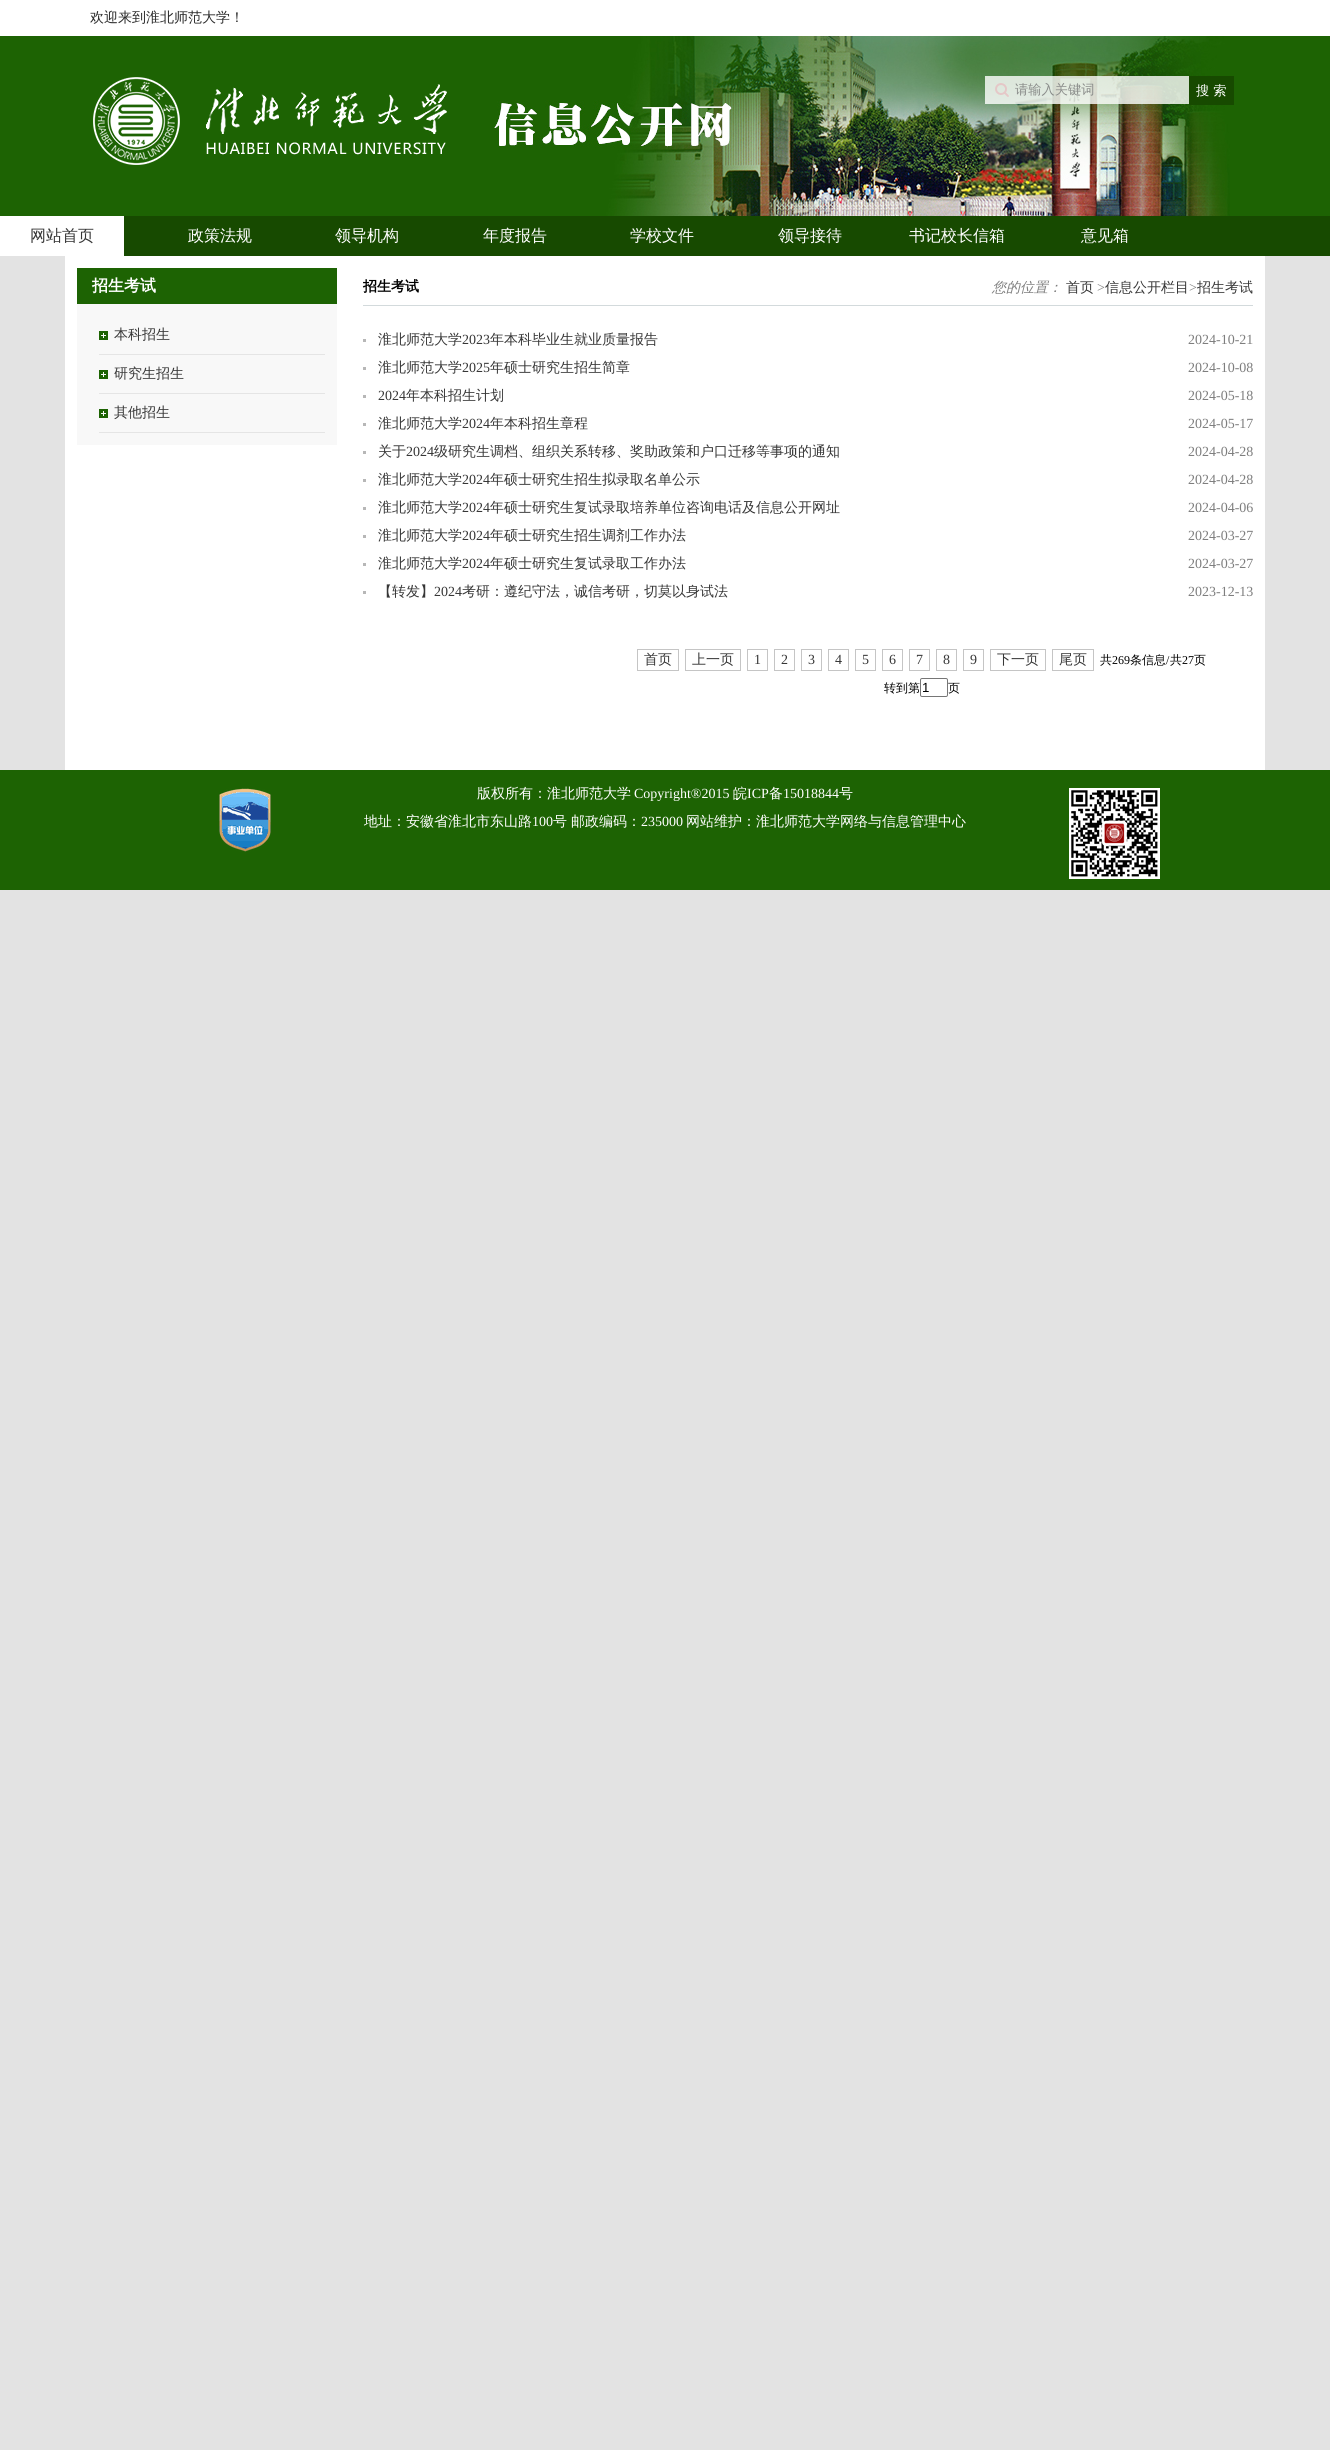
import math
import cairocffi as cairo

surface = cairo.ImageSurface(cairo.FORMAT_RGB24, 1330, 2450)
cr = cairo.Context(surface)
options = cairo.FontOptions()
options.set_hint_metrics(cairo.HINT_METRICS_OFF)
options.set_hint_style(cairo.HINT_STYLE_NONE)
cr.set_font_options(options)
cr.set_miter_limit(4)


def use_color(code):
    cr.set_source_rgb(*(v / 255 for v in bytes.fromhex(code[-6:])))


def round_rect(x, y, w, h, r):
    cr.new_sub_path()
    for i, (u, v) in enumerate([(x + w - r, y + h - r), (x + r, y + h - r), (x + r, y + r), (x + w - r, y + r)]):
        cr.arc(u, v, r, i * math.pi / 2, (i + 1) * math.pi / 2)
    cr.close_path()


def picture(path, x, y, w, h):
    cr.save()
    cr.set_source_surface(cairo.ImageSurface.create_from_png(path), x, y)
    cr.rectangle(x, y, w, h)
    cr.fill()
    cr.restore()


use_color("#e3e3e3")
cr.paint()
use_color("#ffffff")
cr.rectangle(0, 0, 1330, 36)
cr.fill()
cr.select_font_face("WenQuanYi Zen Hei Medium")
cr.set_font_size(14)
use_color("#2a2a2a")
cr.move_to(90, 22)
cr.show_text("欢迎来到淮北师范大学！")
use_color("#1d6303")
cr.rectangle(0, 36, 1330, 180)
cr.fill()
picture("img1.png", 494, 36, 736, 180)
picture("img2.png", 93, 77, 354, 88)
cr.set_source_rgba(1, 1, 1, 0.8)
cr.rectangle(985, 76, 204, 28)
cr.fill()
picture("img3.png", 995, 83, 14, 14)
cr.set_font_size(13.25)
use_color("#8a8c8a")
cr.move_to(1015, 94)
cr.show_text("请输入关键词")
use_color("#174a00")
cr.rectangle(1189, 76, 45, 29)
cr.fill()
use_color("#ffffff")
cr.move_to(1196, 95)
cr.show_text("搜 索")
use_color("#174a00")
cr.rectangle(124, 216, 1206, 40)
cr.fill()
use_color("#ffffff")
cr.rectangle(0, 216, 124, 40)
cr.fill()
cr.set_font_size(16)
use_color("#363636")
cr.move_to(30, 241)
cr.show_text("网站首页")
use_color("#ffffff")
cr.move_to(188, 241)
cr.show_text("政策法规")
cr.move_to(335, 241)
cr.show_text("领导机构")
cr.move_to(483, 241)
cr.show_text("年度报告")
cr.move_to(630, 241)
cr.show_text("学校文件")
cr.move_to(778, 241)
cr.show_text("领导接待")
cr.move_to(909, 241)
cr.show_text("书记校长信箱")
cr.move_to(1081, 241)
cr.show_text("意见箱")
cr.rectangle(65, 256, 1200, 514)
cr.fill()
use_color("#f8f8f8")
cr.rectangle(77, 304, 260, 141)
cr.fill()
use_color("#1d6303")
cr.rectangle(77, 268, 260, 36)
cr.fill()
cr.select_font_face("WenQuanYi Zen Hei", cairo.FONT_SLANT_NORMAL, cairo.FONT_WEIGHT_BOLD)
use_color("#ffffff")
cr.move_to(92, 291)
cr.show_text("招生考试")
picture("img4.png", 99, 331, 9, 9)
use_color("#e5e5e5")
cr.rectangle(99, 354, 226, 1)
cr.fill()
cr.select_font_face("WenQuanYi Zen Hei Medium")
cr.set_font_size(14)
use_color("#363636")
cr.move_to(114, 339)
cr.show_text("本科招生")
picture("img4.png", 99, 370, 9, 9)
use_color("#e5e5e5")
cr.rectangle(99, 393, 226, 1)
cr.fill()
use_color("#363636")
cr.move_to(114, 378)
cr.show_text("研究生招生")
picture("img4.png", 99, 409, 9, 9)
use_color("#e5e5e5")
cr.rectangle(99, 432, 226, 1)
cr.fill()
use_color("#363636")
cr.move_to(114, 417)
cr.show_text("其他招生")
use_color("#d3dadc")
cr.rectangle(363, 305, 890, 1)
cr.fill()
cr.select_font_face("WenQuanYi Zen Hei", cairo.FONT_SLANT_NORMAL, cairo.FONT_WEIGHT_BOLD)
use_color("#000000")
cr.move_to(363, 291)
cr.show_text("招生考试")
cr.select_font_face("WenQuanYi Zen Hei Medium", cairo.FONT_SLANT_ITALIC)
use_color("#7e7e7e")
cr.move_to(992, 292)
cr.show_text("您的位置：")
cr.select_font_face("WenQuanYi Zen Hei Medium")
use_color("#363636")
cr.move_to(1066, 292)
cr.show_text("首页")
cr.select_font_face("Liberation Serif")
use_color("#7e7e7e")
cr.move_to(1097, 292)
cr.show_text(">")
cr.select_font_face("WenQuanYi Zen Hei Medium")
use_color("#363636")
cr.move_to(1105, 292)
cr.show_text("信息公开栏目")
cr.select_font_face("Liberation Serif")
use_color("#7e7e7e")
cr.move_to(1189, 292)
cr.show_text(">")
cr.select_font_face("WenQuanYi Zen Hei Medium")
use_color("#363636")
cr.move_to(1197, 292)
cr.show_text("招生考试")
use_color("#b7b7b7")
cr.rectangle(363, 339, 3, 3)
cr.fill()
use_color("#363636")
cr.move_to(378, 344)
cr.show_text("淮北师范大学")
cr.select_font_face("Liberation Serif")
cr.move_to(462, 344)
cr.show_text("2023")
cr.select_font_face("WenQuanYi Zen Hei Medium")
cr.move_to(490, 344)
cr.show_text("年本科毕业生就业质量报告")
cr.select_font_face("Liberation Serif")
use_color("#7e7e7e")
cr.move_to(1188, 344)
cr.show_text("2024-10-21")
use_color("#b7b7b7")
cr.rectangle(363, 367, 3, 3)
cr.fill()
cr.select_font_face("WenQuanYi Zen Hei Medium")
use_color("#363636")
cr.move_to(378, 372)
cr.show_text("淮北师范大学")
cr.select_font_face("Liberation Serif")
cr.move_to(462, 372)
cr.show_text("2025")
cr.select_font_face("WenQuanYi Zen Hei Medium")
cr.move_to(490, 372)
cr.show_text("年硕士研究生招生简章")
cr.select_font_face("Liberation Serif")
use_color("#7e7e7e")
cr.move_to(1188, 372)
cr.show_text("2024-10-08")
use_color("#b7b7b7")
cr.rectangle(363, 395, 3, 3)
cr.fill()
use_color("#363636")
cr.move_to(378, 400)
cr.show_text("2024")
cr.select_font_face("WenQuanYi Zen Hei Medium")
cr.move_to(406, 400)
cr.show_text("年本科招生计划")
cr.select_font_face("Liberation Serif")
use_color("#7e7e7e")
cr.move_to(1188, 400)
cr.show_text("2024-05-18")
use_color("#b7b7b7")
cr.rectangle(363, 423, 3, 3)
cr.fill()
cr.select_font_face("WenQuanYi Zen Hei Medium")
use_color("#363636")
cr.move_to(378, 428)
cr.show_text("淮北师范大学")
cr.select_font_face("Liberation Serif")
cr.move_to(462, 428)
cr.show_text("2024")
cr.select_font_face("WenQuanYi Zen Hei Medium")
cr.move_to(490, 428)
cr.show_text("年本科招生章程")
cr.select_font_face("Liberation Serif")
use_color("#7e7e7e")
cr.move_to(1188, 428)
cr.show_text("2024-05-17")
use_color("#b7b7b7")
cr.rectangle(363, 451, 3, 3)
cr.fill()
cr.select_font_face("WenQuanYi Zen Hei Medium")
use_color("#363636")
cr.move_to(378, 456)
cr.show_text("关于")
cr.select_font_face("Liberation Serif")
cr.move_to(406, 456)
cr.show_text("2024")
cr.select_font_face("WenQuanYi Zen Hei Medium")
cr.move_to(434, 456)
cr.show_text("级研究生调档、组织关系转移、奖助政策和户口迁移等事项的通知")
cr.select_font_face("Liberation Serif")
use_color("#7e7e7e")
cr.move_to(1188, 456)
cr.show_text("2024-04-28")
use_color("#b7b7b7")
cr.rectangle(363, 479, 3, 3)
cr.fill()
cr.select_font_face("WenQuanYi Zen Hei Medium")
use_color("#363636")
cr.move_to(378, 484)
cr.show_text("淮北师范大学")
cr.select_font_face("Liberation Serif")
cr.move_to(462, 484)
cr.show_text("2024")
cr.select_font_face("WenQuanYi Zen Hei Medium")
cr.move_to(490, 484)
cr.show_text("年硕士研究生招生拟录取名单公示")
cr.select_font_face("Liberation Serif")
use_color("#7e7e7e")
cr.move_to(1188, 484)
cr.show_text("2024-04-28")
use_color("#b7b7b7")
cr.rectangle(363, 507, 3, 3)
cr.fill()
cr.select_font_face("WenQuanYi Zen Hei Medium")
use_color("#363636")
cr.move_to(378, 512)
cr.show_text("淮北师范大学")
cr.select_font_face("Liberation Serif")
cr.move_to(462, 512)
cr.show_text("2024")
cr.select_font_face("WenQuanYi Zen Hei Medium")
cr.move_to(490, 512)
cr.show_text("年硕士研究生复试录取培养单位咨询电话及信息公开网址")
cr.select_font_face("Liberation Serif")
use_color("#7e7e7e")
cr.move_to(1188, 512)
cr.show_text("2024-04-06")
use_color("#b7b7b7")
cr.rectangle(363, 535, 3, 3)
cr.fill()
cr.select_font_face("WenQuanYi Zen Hei Medium")
use_color("#363636")
cr.move_to(378, 540)
cr.show_text("淮北师范大学")
cr.select_font_face("Liberation Serif")
cr.move_to(462, 540)
cr.show_text("2024")
cr.select_font_face("WenQuanYi Zen Hei Medium")
cr.move_to(490, 540)
cr.show_text("年硕士研究生招生调剂工作办法")
cr.select_font_face("Liberation Serif")
use_color("#7e7e7e")
cr.move_to(1188, 540)
cr.show_text("2024-03-27")
use_color("#b7b7b7")
cr.rectangle(363, 563, 3, 3)
cr.fill()
cr.select_font_face("WenQuanYi Zen Hei Medium")
use_color("#363636")
cr.move_to(378, 568)
cr.show_text("淮北师范大学")
cr.select_font_face("Liberation Serif")
cr.move_to(462, 568)
cr.show_text("2024")
cr.select_font_face("WenQuanYi Zen Hei Medium")
cr.move_to(490, 568)
cr.show_text("年硕士研究生复试录取工作办法")
cr.select_font_face("Liberation Serif")
use_color("#7e7e7e")
cr.move_to(1188, 568)
cr.show_text("2024-03-27")
use_color("#b7b7b7")
cr.rectangle(363, 591, 3, 3)
cr.fill()
cr.select_font_face("WenQuanYi Zen Hei Medium")
use_color("#363636")
cr.move_to(378, 596)
cr.show_text("【转发】")
cr.select_font_face("Liberation Serif")
cr.move_to(434, 596)
cr.show_text("2024")
cr.select_font_face("WenQuanYi Zen Hei Medium")
cr.move_to(462, 596)
cr.show_text("考研：遵纪守法，诚信考研，切莫以身试法")
cr.select_font_face("Liberation Serif")
use_color("#7e7e7e")
cr.move_to(1188, 596)
cr.show_text("2023-12-13")
cr.rectangle(637.5, 649.5, 41, 21)
use_color("#c5c5c5")
cr.set_line_width(1)
cr.stroke()
cr.select_font_face("WenQuanYi Zen Hei Medium")
use_color("#363636")
cr.move_to(644, 664)
cr.show_text("首页")
cr.rectangle(685.5, 649.5, 55, 21)
use_color("#c5c5c5")
cr.stroke()
use_color("#363636")
cr.move_to(692, 664)
cr.show_text("上一页")
cr.rectangle(747.5, 649.5, 20, 21)
use_color("#c5c5c5")
cr.stroke()
cr.select_font_face("Liberation Serif")
use_color("#363636")
cr.move_to(754, 664)
cr.show_text("1")
cr.rectangle(774.5, 649.5, 20, 21)
use_color("#c5c5c5")
cr.stroke()
use_color("#363636")
cr.move_to(781, 664)
cr.show_text("2")
cr.rectangle(801.5, 649.5, 20, 21)
use_color("#c5c5c5")
cr.stroke()
use_color("#363636")
cr.move_to(808, 664)
cr.show_text("3")
cr.rectangle(828.5, 649.5, 20, 21)
use_color("#c5c5c5")
cr.stroke()
use_color("#363636")
cr.move_to(835, 664)
cr.show_text("4")
cr.rectangle(855.5, 649.5, 20, 21)
use_color("#c5c5c5")
cr.stroke()
use_color("#363636")
cr.move_to(862, 664)
cr.show_text("5")
cr.rectangle(882.5, 649.5, 20, 21)
use_color("#c5c5c5")
cr.stroke()
use_color("#363636")
cr.move_to(889, 664)
cr.show_text("6")
cr.rectangle(909.5, 649.5, 20, 21)
use_color("#c5c5c5")
cr.stroke()
use_color("#363636")
cr.move_to(916, 664)
cr.show_text("7")
cr.rectangle(936.5, 649.5, 20, 21)
use_color("#c5c5c5")
cr.stroke()
use_color("#363636")
cr.move_to(943, 664)
cr.show_text("8")
cr.rectangle(963.5, 649.5, 20, 21)
use_color("#c5c5c5")
cr.stroke()
use_color("#363636")
cr.move_to(970, 664)
cr.show_text("9")
cr.rectangle(990.5, 649.5, 55, 21)
use_color("#c5c5c5")
cr.stroke()
cr.select_font_face("WenQuanYi Zen Hei Medium")
use_color("#363636")
cr.move_to(997, 664)
cr.show_text("下一页")
cr.rectangle(1052.5, 649.5, 41, 21)
use_color("#c5c5c5")
cr.stroke()
use_color("#363636")
cr.move_to(1059, 664)
cr.show_text("尾页")
cr.set_font_size(12)
use_color("#000000")
cr.move_to(1100, 664)
cr.show_text("共")
cr.select_font_face("Liberation Serif")
cr.move_to(1112, 664)
cr.show_text("269")
cr.select_font_face("WenQuanYi Zen Hei Medium")
cr.move_to(1130, 664)
cr.show_text("条信息")
cr.select_font_face("Liberation Serif")
cr.move_to(1166, 664)
cr.show_text("/")
cr.select_font_face("WenQuanYi Zen Hei Medium")
cr.move_to(1170, 664)
cr.show_text("共")
cr.select_font_face("Liberation Serif")
cr.move_to(1182, 664)
cr.show_text("27")
cr.select_font_face("WenQuanYi Zen Hei Medium")
cr.move_to(1194, 664)
cr.show_text("页")
cr.move_to(884, 692)
cr.show_text("转到第")
round_rect(920.5, 678.5, 27, 18, 1.5)
use_color("#767676")
cr.stroke()
cr.select_font_face("Liberation Sans")
cr.set_font_size(13.25)
use_color("#000000")
cr.move_to(922, 692)
cr.show_text("1")
cr.select_font_face("WenQuanYi Zen Hei Medium")
cr.set_font_size(12)
cr.move_to(948, 692)
cr.show_text("页")
use_color("#1d6303")
cr.rectangle(0, 770, 1330, 120)
cr.fill()
picture("img5.png", 219, 788, 52, 64)
cr.set_font_size(14)
use_color("#ffffff")
cr.move_to(477, 798)
cr.show_text("版权所有：淮北师范大学")
cr.select_font_face("Liberation Serif")
cr.move_to(634, 798)
cr.show_text("Copyright®2015")
cr.select_font_face("WenQuanYi Zen Hei Medium")
cr.move_to(733, 798)
cr.show_text("皖")
cr.select_font_face("Liberation Serif")
cr.move_to(747, 798)
cr.show_text("ICP")
cr.select_font_face("WenQuanYi Zen Hei Medium")
cr.move_to(769, 798)
cr.show_text("备")
cr.select_font_face("Liberation Serif")
cr.move_to(783, 798)
cr.show_text("15018844")
cr.select_font_face("WenQuanYi Zen Hei Medium")
cr.move_to(839, 798)
cr.show_text("号")
cr.move_to(364, 826)
cr.show_text("地址：安徽省淮北市东山路")
cr.select_font_face("Liberation Serif")
cr.move_to(532, 826)
cr.show_text("100")
cr.select_font_face("WenQuanYi Zen Hei Medium")
cr.move_to(553, 826)
cr.show_text("号")
cr.move_to(571, 826)
cr.show_text("邮政编码：")
cr.select_font_face("Liberation Serif")
cr.move_to(641, 826)
cr.show_text("235000")
cr.select_font_face("WenQuanYi Zen Hei Medium")
cr.move_to(686, 826)
cr.show_text("网站维护：淮北师范大学网络与信息管理中心")
picture("img6.png", 1069, 788, 91, 91)
surface.write_to_png("result.png")
